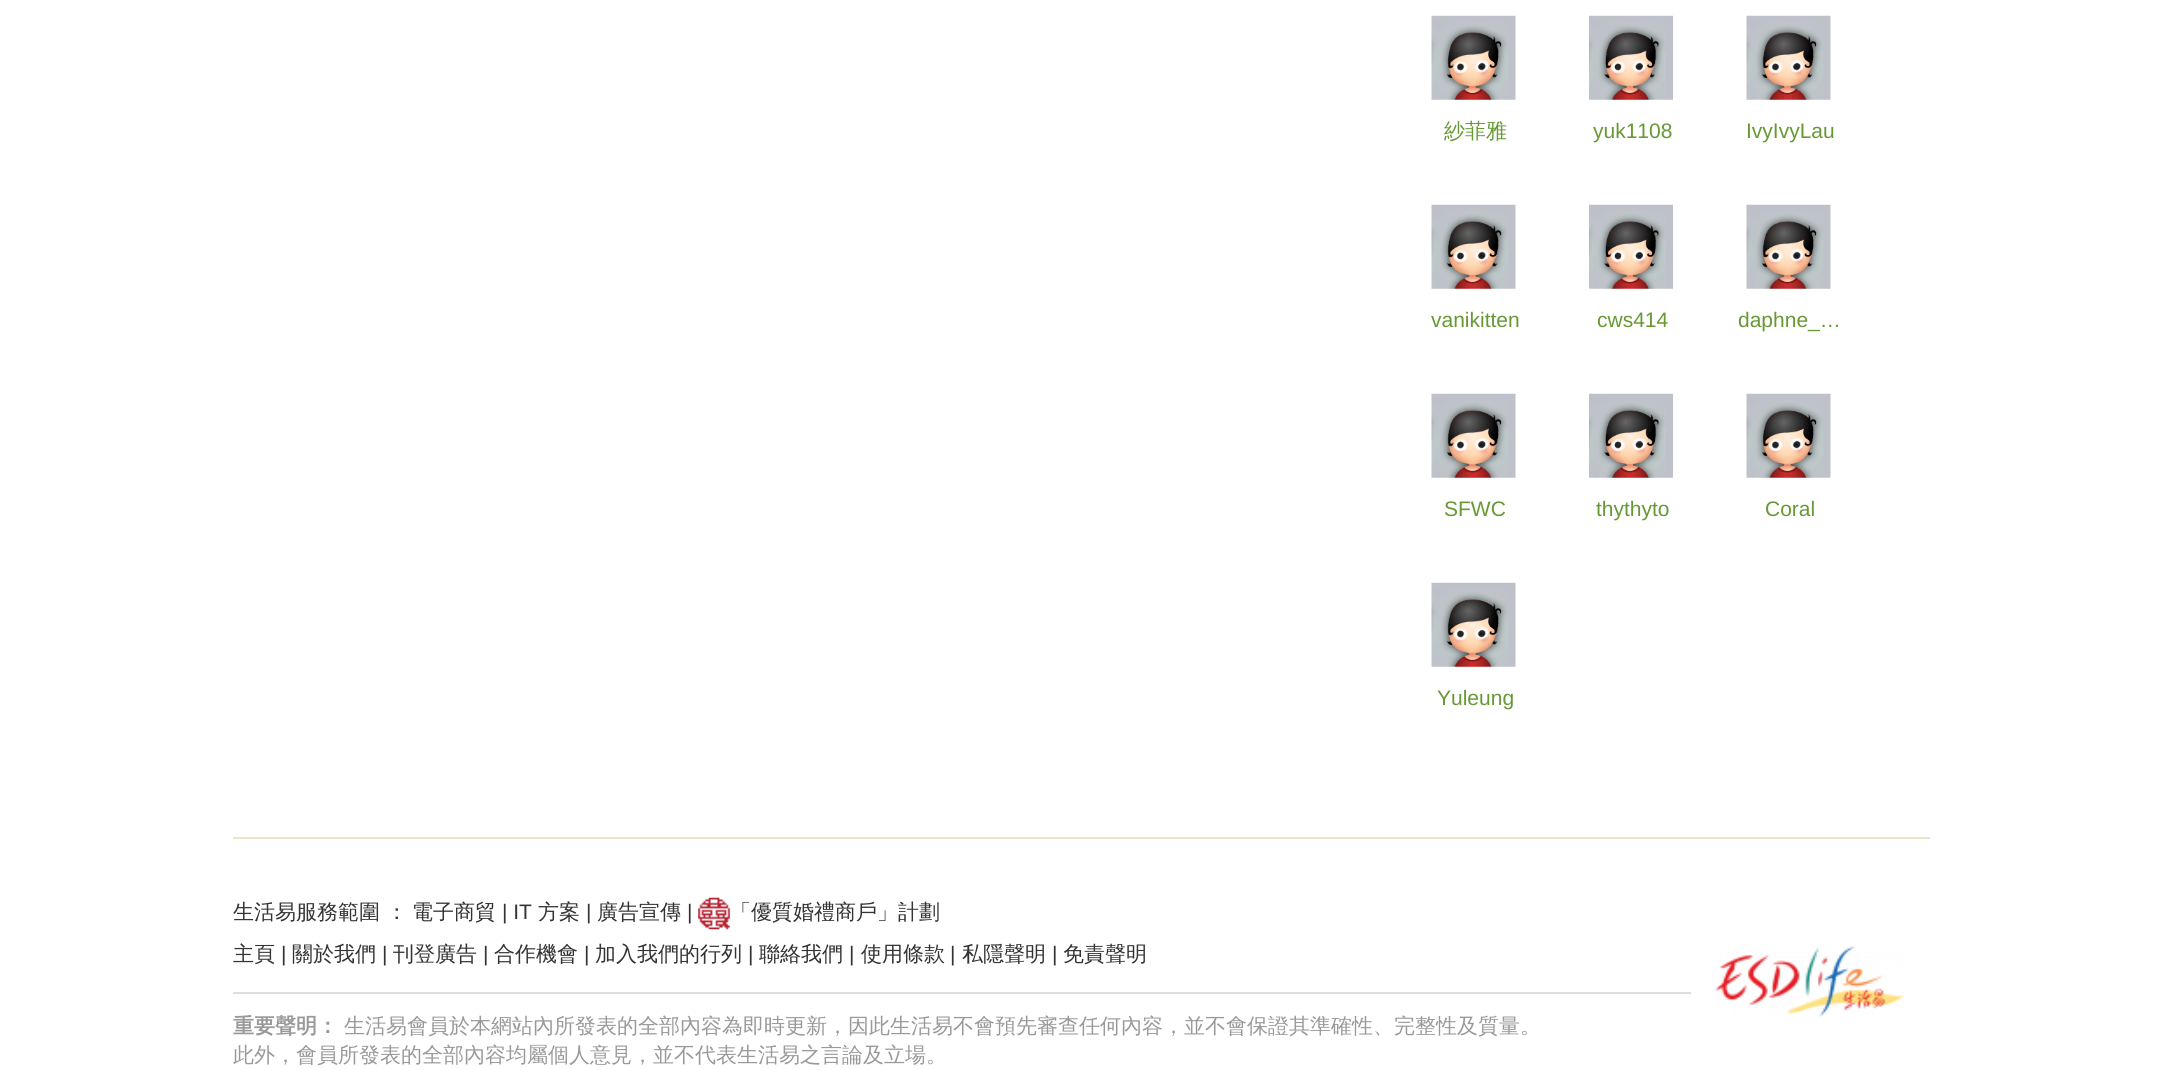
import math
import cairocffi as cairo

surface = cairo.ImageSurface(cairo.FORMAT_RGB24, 2163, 1070)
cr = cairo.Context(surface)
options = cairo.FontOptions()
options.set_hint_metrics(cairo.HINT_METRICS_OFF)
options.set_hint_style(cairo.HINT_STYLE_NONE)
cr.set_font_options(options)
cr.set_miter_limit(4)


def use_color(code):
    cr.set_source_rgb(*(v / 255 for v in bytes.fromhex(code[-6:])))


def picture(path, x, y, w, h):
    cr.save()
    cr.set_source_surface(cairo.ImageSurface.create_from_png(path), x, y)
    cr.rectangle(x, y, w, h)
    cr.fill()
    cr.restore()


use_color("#ffffff")
cr.paint()
picture("img1.png", 1431, 15, 85, 85)
cr.select_font_face("WenQuanYi Zen Hei Medium")
cr.set_font_size(21)
use_color("#669933")
cr.move_to(1444, 138)
cr.show_text("紗菲雅")
picture("img2.png", 1589, 15, 84, 85)
cr.select_font_face("Liberation Sans")
cr.move_to(1593, 138)
cr.show_text("yuk1108")
picture("img1.png", 1746, 15, 85, 85)
cr.move_to(1746, 138)
cr.show_text("IvyIvyLau")
picture("img1.png", 1431, 204, 85, 85)
cr.move_to(1431, 327)
cr.show_text("vanikitten")
picture("img2.png", 1589, 204, 84, 85)
cr.move_to(1597, 327)
cr.show_text("cws414")
picture("img1.png", 1746, 204, 85, 85)
cr.move_to(1738, 327)
cr.show_text("daphne_…")
picture("img1.png", 1431, 393, 85, 85)
cr.move_to(1444, 516)
cr.show_text("SFWC")
picture("img2.png", 1589, 393, 84, 85)
cr.move_to(1596, 516)
cr.show_text("thythyto")
picture("img1.png", 1746, 393, 85, 85)
cr.move_to(1765, 516)
cr.show_text("Coral")
picture("img3.png", 1431, 582, 85, 85)
cr.move_to(1437, 705)
cr.show_text("Yuleung")
use_color("#ebe6c9")
cr.rectangle(233, 837, 1697, 2)
cr.fill()
cr.select_font_face("WenQuanYi Zen Hei Medium")
use_color("#333333")
cr.move_to(233, 919)
cr.show_text("生活易服務範圍 ：")
cr.move_to(412, 919)
cr.show_text("電子商貿")
cr.select_font_face("Liberation Sans")
cr.move_to(502, 919)
cr.show_text("| IT")
cr.select_font_face("WenQuanYi Zen Hei Medium")
cr.move_to(538, 919)
cr.show_text("方案")
cr.select_font_face("Liberation Sans")
cr.move_to(586, 919)
cr.show_text("|")
cr.select_font_face("WenQuanYi Zen Hei Medium")
cr.move_to(597, 919)
cr.show_text("廣告宣傳")
cr.select_font_face("Liberation Sans")
cr.move_to(687, 919)
cr.show_text("|")
picture("img4.png", 698, 897, 32, 33)
cr.select_font_face("WenQuanYi Zen Hei Medium")
cr.move_to(730, 919)
cr.show_text("「優質婚禮商戶」計劃")
cr.move_to(233, 961)
cr.show_text("主頁")
cr.select_font_face("Liberation Sans")
cr.move_to(281, 961)
cr.show_text("|")
cr.select_font_face("WenQuanYi Zen Hei Medium")
cr.move_to(292, 961)
cr.show_text("關於我們")
cr.select_font_face("Liberation Sans")
cr.move_to(382, 961)
cr.show_text("|")
cr.select_font_face("WenQuanYi Zen Hei Medium")
cr.move_to(393, 961)
cr.show_text("刊登廣告")
cr.select_font_face("Liberation Sans")
cr.move_to(483, 961)
cr.show_text("|")
cr.select_font_face("WenQuanYi Zen Hei Medium")
cr.move_to(494, 961)
cr.show_text("合作機會")
cr.select_font_face("Liberation Sans")
cr.move_to(584, 961)
cr.show_text("|")
cr.select_font_face("WenQuanYi Zen Hei Medium")
cr.move_to(595, 961)
cr.show_text("加入我們的行列")
cr.select_font_face("Liberation Sans")
cr.move_to(748, 961)
cr.show_text("|")
cr.select_font_face("WenQuanYi Zen Hei Medium")
cr.move_to(759, 961)
cr.show_text("聯絡我們")
cr.select_font_face("Liberation Sans")
cr.move_to(849, 961)
cr.show_text("|")
cr.select_font_face("WenQuanYi Zen Hei Medium")
cr.move_to(861, 961)
cr.show_text("使用條款")
cr.select_font_face("Liberation Sans")
cr.move_to(950, 961)
cr.show_text("|")
cr.select_font_face("WenQuanYi Zen Hei Medium")
cr.move_to(962, 961)
cr.show_text("私隱聲明")
cr.select_font_face("Liberation Sans")
cr.move_to(1052, 961)
cr.show_text("|")
cr.select_font_face("WenQuanYi Zen Hei Medium")
cr.move_to(1063, 961)
cr.show_text("免責聲明")
picture("img5.png", 1714, 946, 191, 71)
use_color("#dddddd")
cr.rectangle(233, 992, 1458, 2)
cr.fill()
cr.select_font_face("WenQuanYi Zen Hei", cairo.FONT_SLANT_NORMAL, cairo.FONT_WEIGHT_BOLD)
use_color("#999999")
cr.move_to(233, 1033)
cr.show_text("重要聲明：")
cr.select_font_face("WenQuanYi Zen Hei Medium")
cr.move_to(344, 1033)
cr.show_text("生活易會員於本網站內所發表的全部內容為即時更新，因此生活易不會預先審查任何內容，並不會保證其準確性、完整性及質量。")
cr.move_to(233, 1062)
cr.show_text("此外，會員所發表的全部內容均屬個人意見，並不代表生活易之言論及立場。")
surface.write_to_png("result.png")
